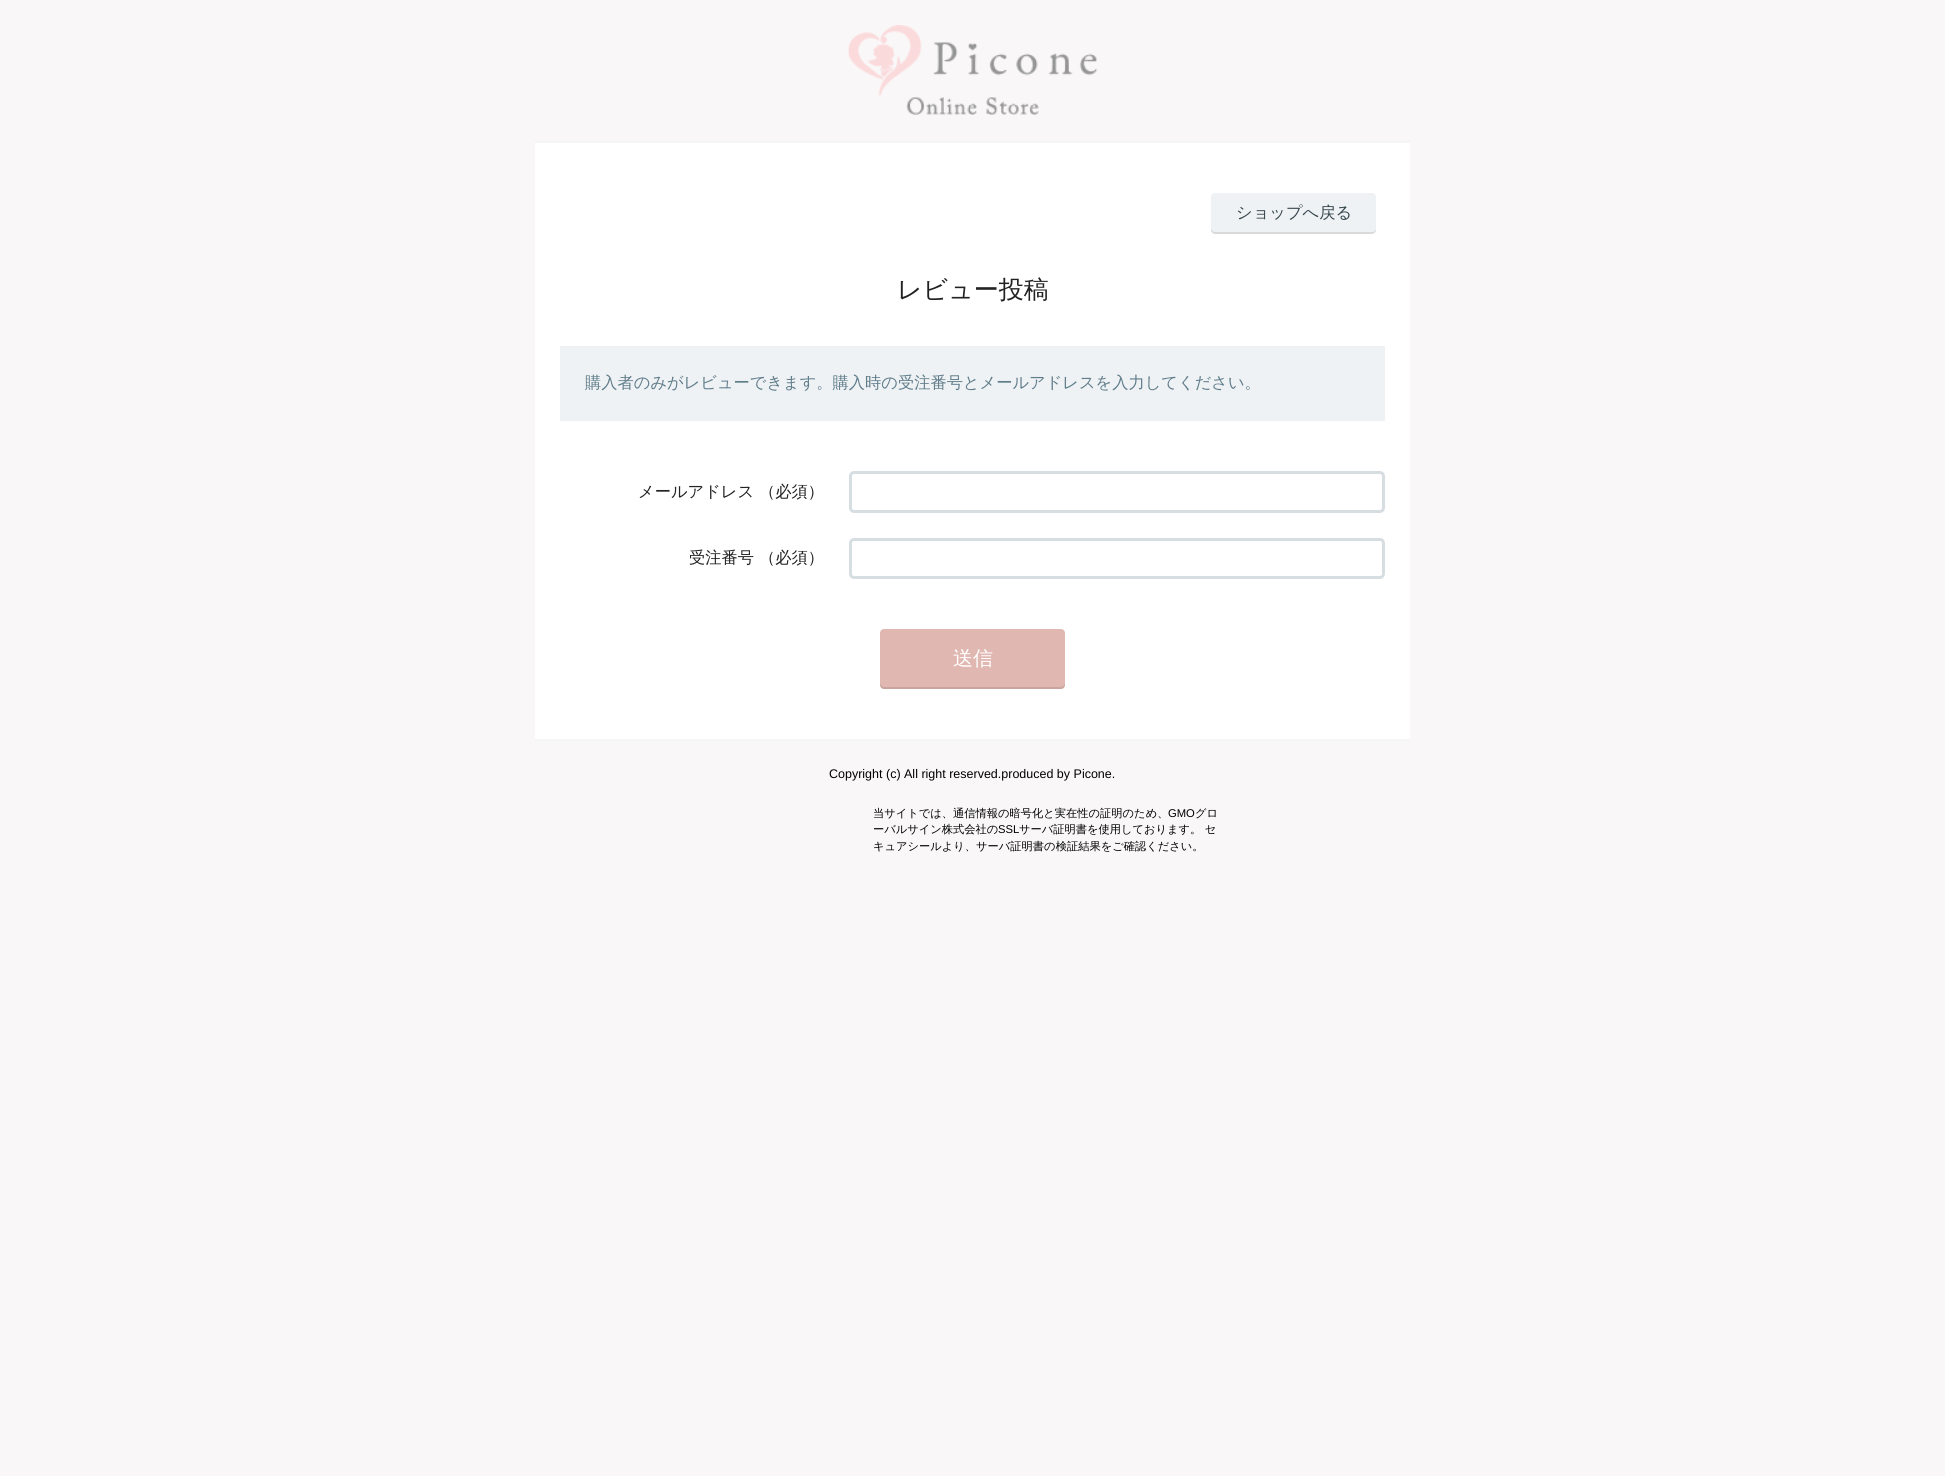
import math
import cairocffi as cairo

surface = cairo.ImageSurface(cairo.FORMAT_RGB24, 1945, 1476)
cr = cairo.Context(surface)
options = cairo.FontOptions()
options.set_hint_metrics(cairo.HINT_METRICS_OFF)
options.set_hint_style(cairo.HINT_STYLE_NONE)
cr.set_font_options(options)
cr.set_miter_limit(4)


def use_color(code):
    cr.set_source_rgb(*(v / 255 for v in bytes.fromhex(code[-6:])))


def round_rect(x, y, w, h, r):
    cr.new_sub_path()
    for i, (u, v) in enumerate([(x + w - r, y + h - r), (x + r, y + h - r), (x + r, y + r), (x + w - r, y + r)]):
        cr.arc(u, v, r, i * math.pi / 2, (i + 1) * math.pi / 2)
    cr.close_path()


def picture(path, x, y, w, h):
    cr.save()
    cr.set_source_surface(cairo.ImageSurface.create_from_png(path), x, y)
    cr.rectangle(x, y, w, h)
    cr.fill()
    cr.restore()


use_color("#f9f7f7")
cr.paint()
picture("img1.png", 848, 25, 250, 90)
use_color("#ffffff")
cr.rectangle(535, 143, 875, 596)
cr.fill()
use_color("#f6f6f6")
cr.rectangle(535, 140, 875, 3)
cr.fill()
cr.rectangle(535, 739, 875, 3)
cr.fill()
use_color("#eff2f4")
round_rect(1211, 193, 165, 41, 4)
cr.fill()
cr.set_source_rgba(0, 0, 0, 0.1)
cr.new_path()
cr.move_to(1211, 228)
cr.line_to(1211, 230)
cr.curve_to(1211, 232, 1213, 234, 1215, 234)
cr.line_to(1372, 234)
cr.curve_to(1374, 234, 1376, 232, 1376, 230)
cr.line_to(1376, 228)
cr.curve_to(1376, 230, 1375, 232, 1372, 232)
cr.line_to(1215, 232)
cr.curve_to(1213, 232, 1211, 230, 1211, 228)
cr.close_path()
cr.fill()
cr.select_font_face("WenQuanYi Zen Hei Medium")
cr.set_font_size(16.25)
use_color("#35454c")
cr.move_to(1236, 218)
cr.show_text("ショップへ戻る")
cr.set_font_size(25)
use_color("#222222")
cr.move_to(897, 298)
cr.show_text("レビュー投稿")
use_color("#eff2f4")
cr.rectangle(560, 346, 825, 75)
cr.fill()
cr.set_font_size(16.25)
use_color("#607d8b")
cr.move_to(585, 388)
cr.show_text("購入者のみがレビューできます。購入時の受注番号とメールアドレスを入力してください。")
use_color("#222222")
cr.move_to(638, 497)
cr.show_text("メールアドレス")
cr.move_to(759, 497)
cr.show_text("（必須）")
round_rect(850.5, 472.5, 533, 39, 3.5)
use_color("#d7dee2")
cr.set_line_width(3)
cr.stroke()
use_color("#222222")
cr.move_to(689, 563)
cr.show_text("受注番号")
cr.move_to(759, 563)
cr.show_text("（必須）")
round_rect(850.5, 539.5, 533, 38, 3.5)
use_color("#d7dee2")
cr.stroke()
use_color("#e0b7b1")
round_rect(880, 629, 185, 60, 4)
cr.fill()
cr.set_source_rgba(0, 0, 0, 0.1)
cr.new_path()
cr.move_to(880, 683)
cr.line_to(880, 685)
cr.curve_to(880, 687, 882, 689, 884, 689)
cr.line_to(1061, 689)
cr.curve_to(1063, 689, 1065, 687, 1065, 685)
cr.line_to(1065, 683)
cr.curve_to(1065, 685, 1063, 687, 1061, 687)
cr.line_to(884, 687)
cr.curve_to(882, 687, 880, 685, 880, 683)
cr.close_path()
cr.fill()
cr.set_font_size(20)
use_color("#ffffff")
cr.move_to(953, 665)
cr.show_text("送信")
cr.select_font_face("Liberation Sans")
cr.set_font_size(12.5)
use_color("#000000")
cr.move_to(829, 778)
cr.show_text("Copyright (c) All right reserved.produced by Picone.")
cr.select_font_face("WenQuanYi Zen Hei Medium")
cr.set_font_size(11.25)
cr.move_to(873, 817)
cr.show_text("当サイトでは、通信情報の暗号化と実在性の証明のため、")
cr.select_font_face("Liberation Sans")
cr.move_to(1168, 817)
cr.show_text("GMO")
cr.select_font_face("WenQuanYi Zen Hei Medium")
cr.move_to(1195, 817)
cr.show_text("グロ")
cr.move_to(873, 833)
cr.show_text("ーバルサイン株式会社の")
cr.select_font_face("Liberation Sans")
cr.move_to(998, 833)
cr.show_text("SSL")
cr.select_font_face("WenQuanYi Zen Hei Medium")
cr.move_to(1019, 833)
cr.show_text("サーバ証明書を使用しております。 セ")
cr.move_to(873, 850)
cr.show_text("キュアシールより、サーバ証明書の検証結果をご確認ください。")
surface.write_to_png("result.png")
